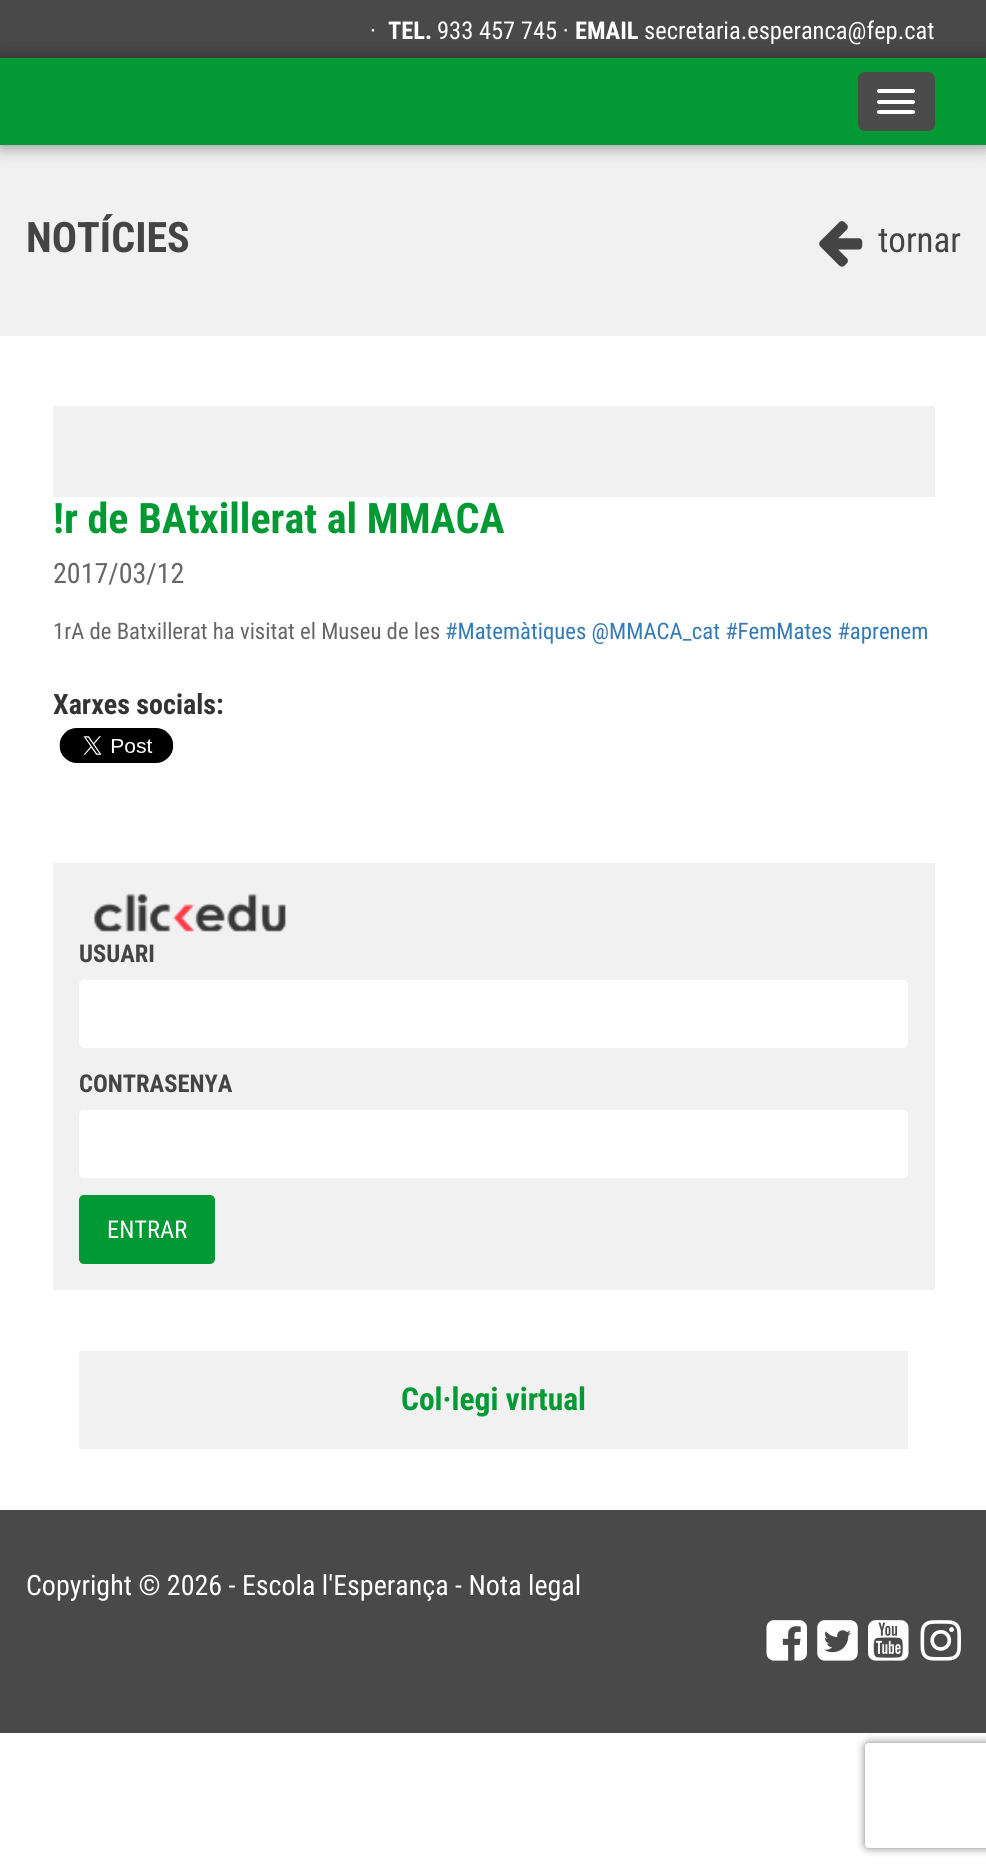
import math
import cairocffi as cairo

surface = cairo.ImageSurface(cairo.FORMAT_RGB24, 986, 1872)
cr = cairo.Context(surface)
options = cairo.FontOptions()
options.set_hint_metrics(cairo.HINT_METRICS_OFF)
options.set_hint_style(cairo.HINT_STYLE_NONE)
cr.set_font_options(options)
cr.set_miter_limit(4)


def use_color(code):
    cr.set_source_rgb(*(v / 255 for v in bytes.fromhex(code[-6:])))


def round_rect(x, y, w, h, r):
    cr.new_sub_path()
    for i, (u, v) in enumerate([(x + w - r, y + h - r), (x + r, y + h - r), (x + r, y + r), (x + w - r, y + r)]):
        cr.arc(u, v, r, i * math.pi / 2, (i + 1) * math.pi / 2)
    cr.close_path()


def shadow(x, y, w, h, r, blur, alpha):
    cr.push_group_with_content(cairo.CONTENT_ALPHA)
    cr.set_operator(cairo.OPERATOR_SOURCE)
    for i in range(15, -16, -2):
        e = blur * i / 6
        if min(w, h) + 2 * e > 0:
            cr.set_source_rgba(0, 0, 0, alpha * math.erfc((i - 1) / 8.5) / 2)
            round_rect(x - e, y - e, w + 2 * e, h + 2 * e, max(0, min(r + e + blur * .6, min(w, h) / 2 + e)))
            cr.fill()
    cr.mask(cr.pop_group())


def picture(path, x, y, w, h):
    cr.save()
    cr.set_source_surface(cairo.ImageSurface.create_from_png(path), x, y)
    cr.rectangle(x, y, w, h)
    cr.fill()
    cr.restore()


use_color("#ffffff")
cr.paint()
use_color("#494949")
cr.rectangle(0, 0, 986, 58)
cr.fill()
cr.select_font_face("Roboto Condensed")
cr.set_font_size(24.5)
use_color("#ffffff")
cr.move_to(370, 39)
cr.show_text("·")
cr.select_font_face("Roboto Condensed", cairo.FONT_SLANT_NORMAL, cairo.FONT_WEIGHT_BOLD)
cr.move_to(388, 39)
cr.show_text("TEL.")
cr.select_font_face("Roboto Condensed")
cr.move_to(437, 39)
cr.show_text("933 457 745 ·")
cr.select_font_face("Roboto Condensed", cairo.FONT_SLANT_NORMAL, cairo.FONT_WEIGHT_BOLD)
cr.move_to(575, 39)
cr.show_text("EMAIL")
cr.select_font_face("Roboto Condensed")
cr.move_to(644, 39)
cr.show_text("secretaria.esperanca@fep.cat")
use_color("#f1f1f1")
cr.rectangle(0, 145, 986, 191)
cr.fill()
use_color("#131215")
shadow(0, 58, 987, 87, 0, 9, 0.52)
use_color("#039a35")
cr.rectangle(0, 58, 986, 87)
cr.fill()
use_color("#4b4b4b")
round_rect(858, 72, 77, 59, 7)
cr.fill()
use_color("#ffffff")
round_rect(877, 89, 38, 4, 2)
cr.fill()
round_rect(877, 100, 38, 4, 2)
cr.fill()
round_rect(877, 110, 38, 4, 2)
cr.fill()
cr.select_font_face("Roboto Condensed", cairo.FONT_SLANT_NORMAL, cairo.FONT_WEIGHT_BOLD)
cr.set_font_size(42)
use_color("#444444")
cr.move_to(26, 252)
cr.show_text("NOTÍCIES")
picture("img1.png", 819, 221, 44, 46)
cr.select_font_face("Roboto Condensed")
cr.set_font_size(35)
cr.move_to(878, 252)
cr.show_text("tornar")
use_color("#f1f1f1")
cr.rectangle(53, 406, 882, 91)
cr.fill()
cr.select_font_face("Roboto Condensed", cairo.FONT_SLANT_NORMAL, cairo.FONT_WEIGHT_BOLD)
cr.set_font_size(42)
use_color("#009933")
cr.move_to(53, 533)
cr.show_text("!r de BAtxillerat al MMACA")
cr.select_font_face("Roboto Condensed")
cr.set_font_size(28)
use_color("#666666")
cr.move_to(53, 583)
cr.show_text("2017/03/12")
cr.set_font_size(22.75)
cr.move_to(53, 639)
cr.show_text("1rA de Batxillerat ha visitat el Museu de les")
use_color("#337ab7")
cr.move_to(445, 639)
cr.show_text("#Matemàtiques @MMACA_cat #FemMates #aprenem")
cr.select_font_face("Roboto Condensed", cairo.FONT_SLANT_NORMAL, cairo.FONT_WEIGHT_BOLD)
cr.set_font_size(28)
use_color("#333333")
cr.move_to(53, 714)
cr.show_text("Xarxes socials:")
picture("img2.png", 59, 728, 115, 35)
use_color("#f1f1f1")
cr.rectangle(53, 863, 882, 427)
cr.fill()
picture("img3.png", 94, 893, 192, 39)
cr.set_font_size(24.5)
use_color("#444444")
cr.move_to(79, 962)
cr.show_text("USUARI")
use_color("#ffffff")
round_rect(79, 980, 829, 68, 5)
cr.fill()
use_color("#444444")
cr.move_to(79, 1092)
cr.show_text("CONTRASENYA")
use_color("#ffffff")
round_rect(79, 1110, 829, 68, 5)
cr.fill()
use_color("#009933")
round_rect(79, 1195, 136, 69, 5)
cr.fill()
cr.select_font_face("Roboto Condensed")
use_color("#ffffff")
cr.move_to(107, 1238)
cr.show_text("ENTRAR")
use_color("#f1f1f1")
cr.rectangle(79, 1351, 829, 98)
cr.fill()
cr.select_font_face("Roboto Condensed", cairo.FONT_SLANT_NORMAL, cairo.FONT_WEIGHT_BOLD)
cr.set_font_size(31.5)
use_color("#009933")
cr.move_to(401, 1410)
cr.show_text("Col·legi virtual")
use_color("#494949")
cr.rectangle(0, 1510, 986, 223)
cr.fill()
cr.select_font_face("Roboto Condensed")
cr.set_font_size(28)
use_color("#ffffff")
cr.move_to(26, 1595)
cr.show_text("Copyright © 2026 - Escola l'Esperança - Nota legal")
picture("img4.png", 766, 1620, 41, 41)
picture("img5.png", 817, 1620, 41, 41)
picture("img6.png", 868, 1620, 41, 41)
picture("img7.png", 920, 1620, 41, 41)
cr.save()
cr.set_fill_rule(cairo.FILL_RULE_EVEN_ODD)
cr.new_path()
cr.move_to(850, 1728)
cr.line_to(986, 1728)
cr.line_to(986, 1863)
cr.line_to(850, 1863)
cr.close_path()
cr.move_to(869, 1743)
cr.line_to(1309, 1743)
cr.curve_to(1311, 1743, 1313, 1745, 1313, 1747)
cr.line_to(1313, 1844)
cr.curve_to(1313, 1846, 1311, 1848, 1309, 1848)
cr.line_to(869, 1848)
cr.curve_to(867, 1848, 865, 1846, 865, 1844)
cr.line_to(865, 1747)
cr.curve_to(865, 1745, 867, 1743, 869, 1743)
cr.close_path()
cr.clip()
use_color("#808080")
shadow(865, 1743, 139, 105, 4, 4.5, 1)
cr.restore()
surface.write_to_png("result.png")
